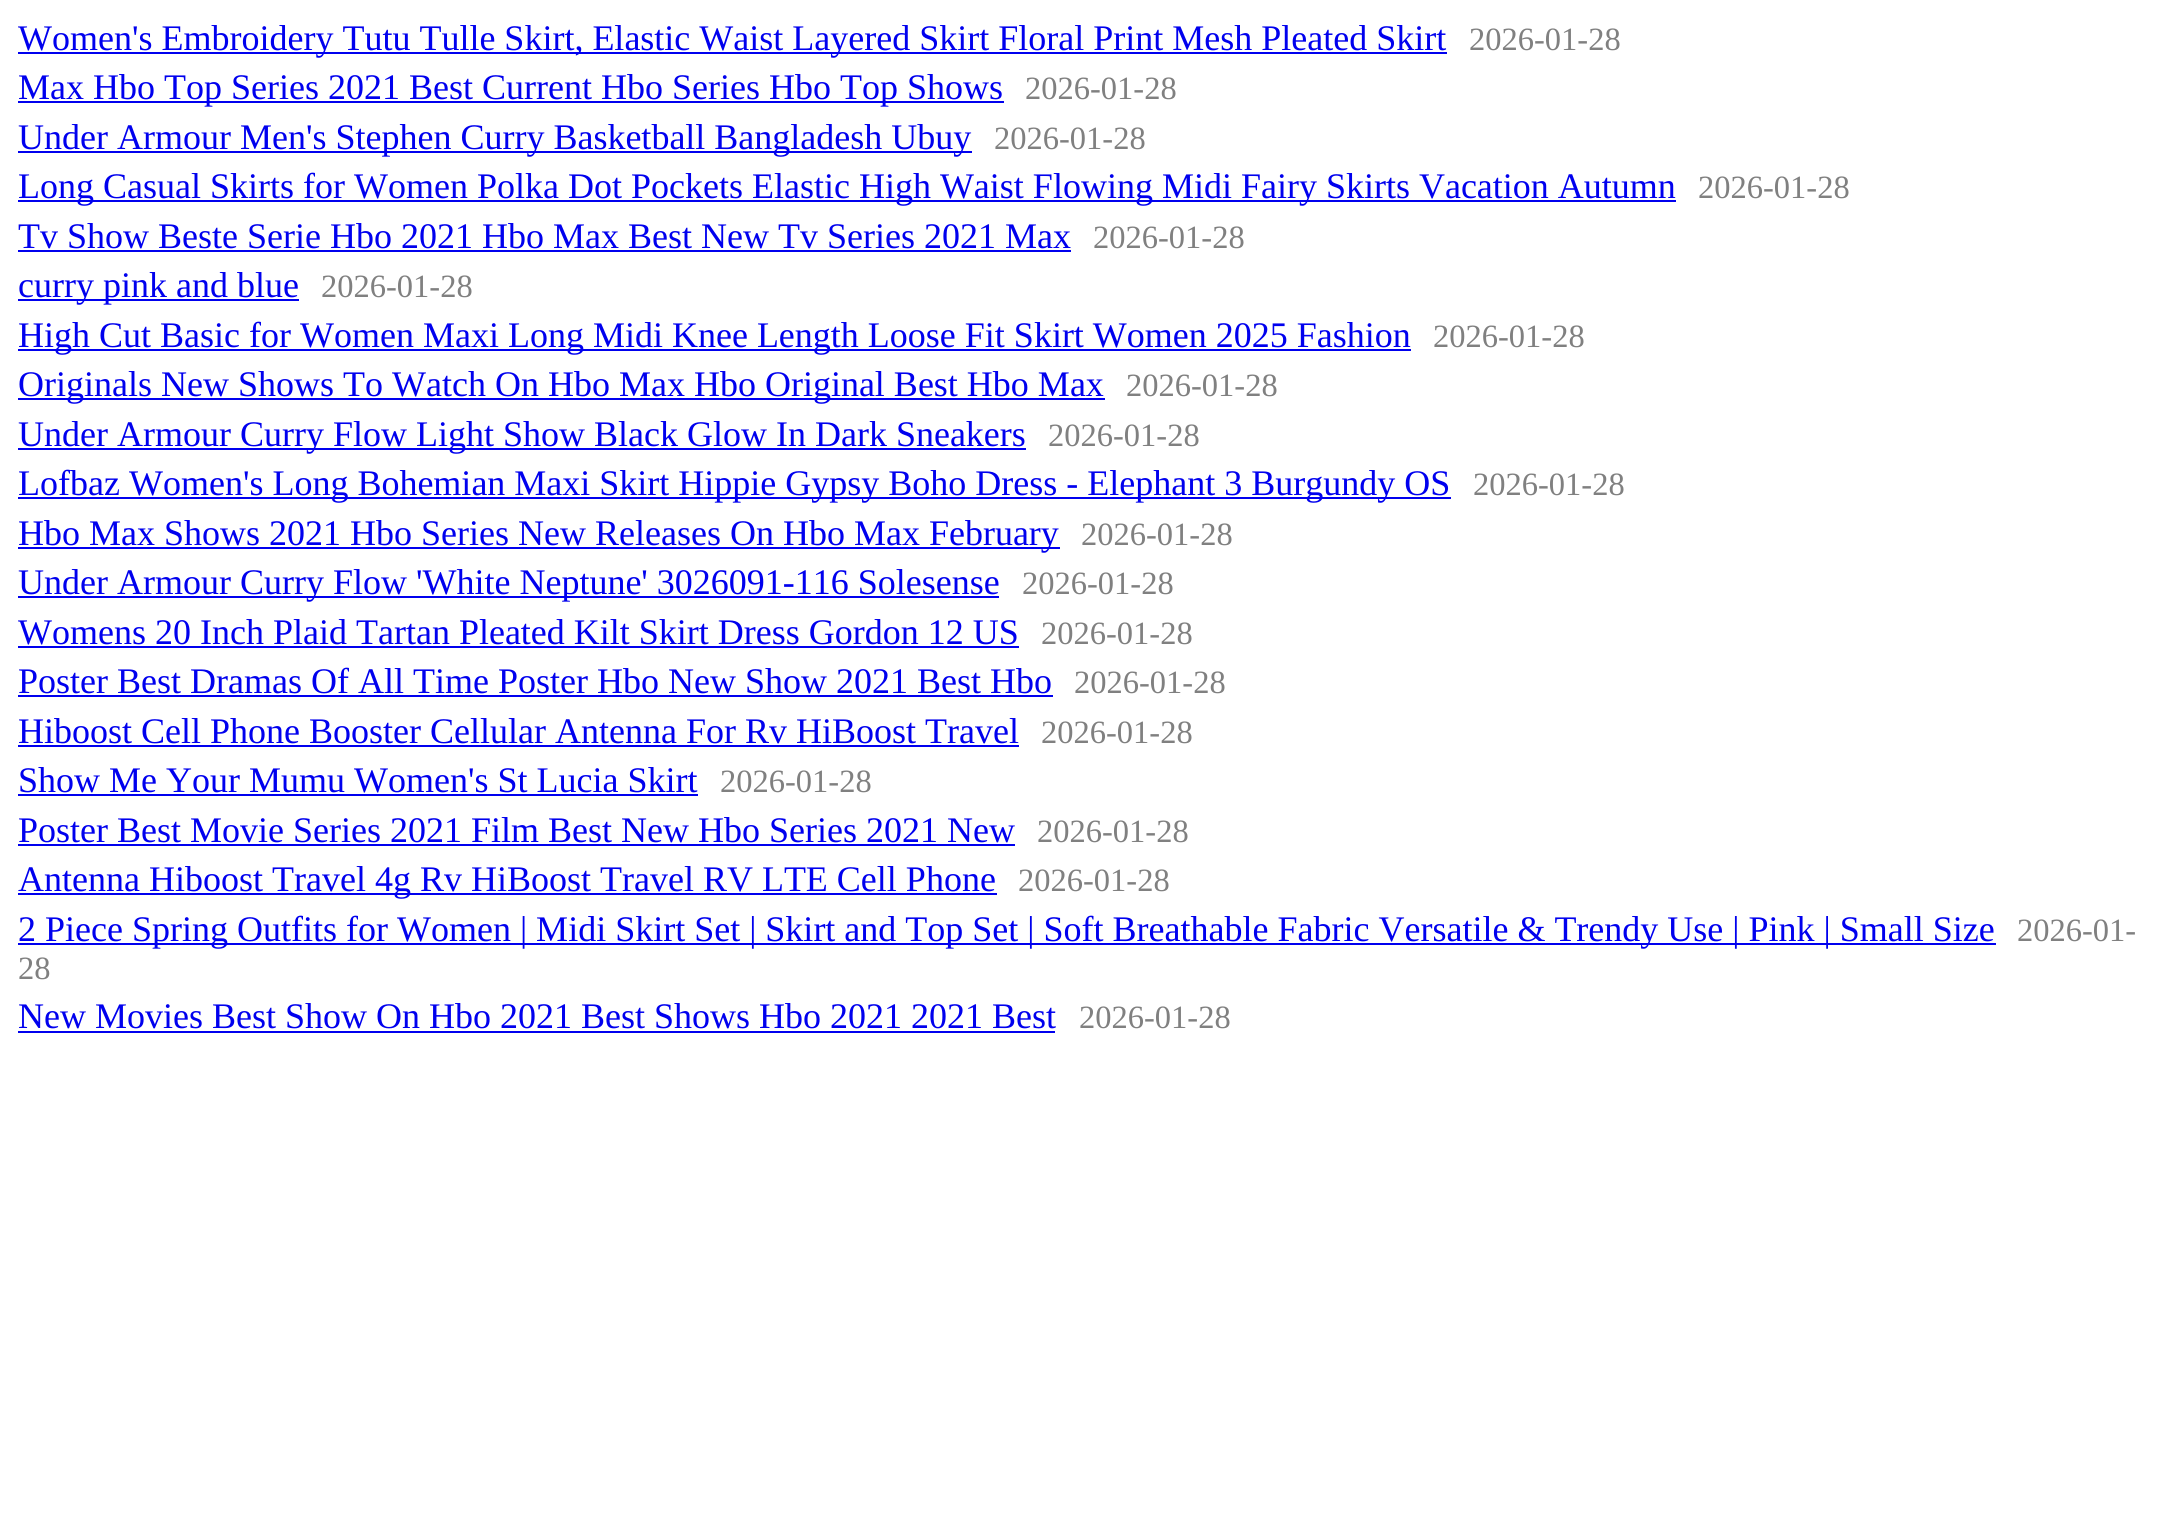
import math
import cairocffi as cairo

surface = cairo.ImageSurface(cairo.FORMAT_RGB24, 2180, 1532)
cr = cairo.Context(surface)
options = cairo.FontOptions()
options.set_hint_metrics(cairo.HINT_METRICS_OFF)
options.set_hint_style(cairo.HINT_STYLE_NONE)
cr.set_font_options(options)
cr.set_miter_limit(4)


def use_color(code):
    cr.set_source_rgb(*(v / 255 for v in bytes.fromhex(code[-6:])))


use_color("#ffffff")
cr.paint()
use_color("#0000ee")
cr.rectangle(18, 52, 1429, 2)
cr.fill()
cr.select_font_face("Liberation Serif")
cr.set_font_size(36)
cr.move_to(18, 50)
cr.show_text("Women's Embroidery Tutu Tulle Skirt, Elastic Waist Layered Skirt Floral Print Mesh Pleated Skirt")
cr.set_font_size(32.5)
use_color("#808080")
cr.move_to(1469, 50)
cr.show_text("2026-01-28")
use_color("#0000ee")
cr.rectangle(18, 101, 986, 2)
cr.fill()
cr.set_font_size(36)
cr.move_to(18, 99)
cr.show_text("Max Hbo Top Series 2021 Best Current Hbo Series Hbo Top Shows")
cr.set_font_size(32.5)
use_color("#808080")
cr.move_to(1025, 99)
cr.show_text("2026-01-28")
use_color("#0000ee")
cr.rectangle(18, 151, 954, 2)
cr.fill()
cr.set_font_size(36)
cr.move_to(18, 149)
cr.show_text("Under Armour Men's Stephen Curry Basketball Bangladesh Ubuy")
cr.set_font_size(32.5)
use_color("#808080")
cr.move_to(994, 149)
cr.show_text("2026-01-28")
use_color("#0000ee")
cr.rectangle(18, 200, 1658, 2)
cr.fill()
cr.set_font_size(36)
cr.move_to(18, 198)
cr.show_text("Long Casual Skirts for Women Polka Dot Pockets Elastic High Waist Flowing Midi Fairy Skirts Vacation Autumn")
cr.set_font_size(32.5)
use_color("#808080")
cr.move_to(1698, 198)
cr.show_text("2026-01-28")
cr.set_font_size(36)
use_color("#0000ee")
cr.move_to(18, 248)
cr.show_text("Tv Show Beste Serie Hbo 2021 Hbo Max Best New Tv Series 2021 Max")
cr.rectangle(18, 250, 1053, 2)
cr.fill()
cr.set_font_size(32.5)
use_color("#808080")
cr.move_to(1093, 248)
cr.show_text("2026-01-28")
use_color("#0000ee")
cr.rectangle(18, 299, 281, 2)
cr.fill()
cr.set_font_size(36)
cr.move_to(18, 297)
cr.show_text("curry pink and blue")
cr.set_font_size(32.5)
use_color("#808080")
cr.move_to(321, 297)
cr.show_text("2026-01-28")
use_color("#0000ee")
cr.rectangle(18, 349, 1393, 2)
cr.fill()
cr.set_font_size(36)
cr.move_to(18, 347)
cr.show_text("High Cut Basic for Women Maxi Long Midi Knee Length Loose Fit Skirt Women 2025 Fashion")
cr.set_font_size(32.5)
use_color("#808080")
cr.move_to(1433, 347)
cr.show_text("2026-01-28")
use_color("#0000ee")
cr.rectangle(18, 398, 1087, 2)
cr.fill()
cr.set_font_size(36)
cr.move_to(18, 396)
cr.show_text("Originals New Shows To Watch On Hbo Max Hbo Original Best Hbo Max")
cr.set_font_size(32.5)
use_color("#808080")
cr.move_to(1126, 396)
cr.show_text("2026-01-28")
use_color("#0000ee")
cr.rectangle(18, 448, 1008, 2)
cr.fill()
cr.set_font_size(36)
cr.move_to(18, 446)
cr.show_text("Under Armour Curry Flow Light Show Black Glow In Dark Sneakers")
cr.set_font_size(32.5)
use_color("#808080")
cr.move_to(1048, 446)
cr.show_text("2026-01-28")
use_color("#0000ee")
cr.rectangle(18, 497, 1433, 2)
cr.fill()
cr.set_font_size(36)
cr.move_to(18, 495)
cr.show_text("Lofbaz Women's Long Bohemian Maxi Skirt Hippie Gypsy Boho Dress - Elephant 3 Burgundy OS")
cr.set_font_size(32.5)
use_color("#808080")
cr.move_to(1473, 495)
cr.show_text("2026-01-28")
use_color("#0000ee")
cr.rectangle(18, 547, 1042, 2)
cr.fill()
cr.set_font_size(36)
cr.move_to(18, 545)
cr.show_text("Hbo Max Shows 2021 Hbo Series New Releases On Hbo Max February")
cr.set_font_size(32.5)
use_color("#808080")
cr.move_to(1081, 545)
cr.show_text("2026-01-28")
use_color("#0000ee")
cr.rectangle(18, 596, 981, 2)
cr.fill()
cr.set_font_size(36)
cr.move_to(18, 594)
cr.show_text("Under Armour Curry Flow 'White Neptune' 3026091-116 Solesense")
cr.set_font_size(32.5)
use_color("#808080")
cr.move_to(1022, 594)
cr.show_text("2026-01-28")
cr.set_font_size(36)
use_color("#0000ee")
cr.move_to(18, 644)
cr.show_text("Womens 20 Inch Plaid Tartan Pleated Kilt Skirt Dress Gordon 12 US")
cr.rectangle(18, 646, 1001, 2)
cr.fill()
cr.set_font_size(32.5)
use_color("#808080")
cr.move_to(1041, 644)
cr.show_text("2026-01-28")
cr.set_font_size(36)
use_color("#0000ee")
cr.move_to(18, 693)
cr.show_text("Poster Best Dramas Of All Time Poster Hbo New Show 2021 Best Hbo")
cr.rectangle(18, 695, 1035, 2)
cr.fill()
cr.set_font_size(32.5)
use_color("#808080")
cr.move_to(1074, 693)
cr.show_text("2026-01-28")
cr.set_font_size(36)
use_color("#0000ee")
cr.move_to(18, 743)
cr.show_text("Hiboost Cell Phone Booster Cellular Antenna For Rv HiBoost Travel")
cr.rectangle(18, 745, 1001, 2)
cr.fill()
cr.set_font_size(32.5)
use_color("#808080")
cr.move_to(1041, 743)
cr.show_text("2026-01-28")
cr.set_font_size(36)
use_color("#0000ee")
cr.move_to(18, 792)
cr.show_text("Show Me Your Mumu Women's St Lucia Skirt")
cr.rectangle(18, 794, 680, 2)
cr.fill()
cr.set_font_size(32.5)
use_color("#808080")
cr.move_to(720, 792)
cr.show_text("2026-01-28")
cr.set_font_size(36)
use_color("#0000ee")
cr.move_to(18, 842)
cr.show_text("Poster Best Movie Series 2021 Film Best New Hbo Series 2021 New")
cr.rectangle(18, 844, 997, 2)
cr.fill()
cr.set_font_size(32.5)
use_color("#808080")
cr.move_to(1037, 842)
cr.show_text("2026-01-28")
use_color("#0000ee")
cr.rectangle(18, 893, 979, 2)
cr.fill()
cr.set_font_size(36)
cr.move_to(18, 891)
cr.show_text("Antenna Hiboost Travel 4g Rv HiBoost Travel RV LTE Cell Phone")
cr.set_font_size(32.5)
use_color("#808080")
cr.move_to(1018, 891)
cr.show_text("2026-01-28")
use_color("#0000ee")
cr.rectangle(18, 943, 1978, 2)
cr.fill()
cr.set_font_size(36)
cr.move_to(18, 941)
cr.show_text("2 Piece Spring Outfits for Women | Midi Skirt Set | Skirt and Top Set | Soft Breathable Fabric Versatile & Trendy Use | Pink | Small Size")
cr.set_font_size(32.5)
use_color("#808080")
cr.move_to(2017, 941)
cr.show_text("2026-01-")
cr.move_to(18, 979)
cr.show_text("28")
cr.set_font_size(36)
use_color("#0000ee")
cr.move_to(18, 1028)
cr.show_text("New Movies Best Show On Hbo 2021 Best Shows Hbo 2021 2021 Best")
cr.rectangle(18, 1031, 1037, 2)
cr.fill()
cr.set_font_size(32.5)
use_color("#808080")
cr.move_to(1079, 1028)
cr.show_text("2026-01-28")
surface.write_to_png("result.png")
